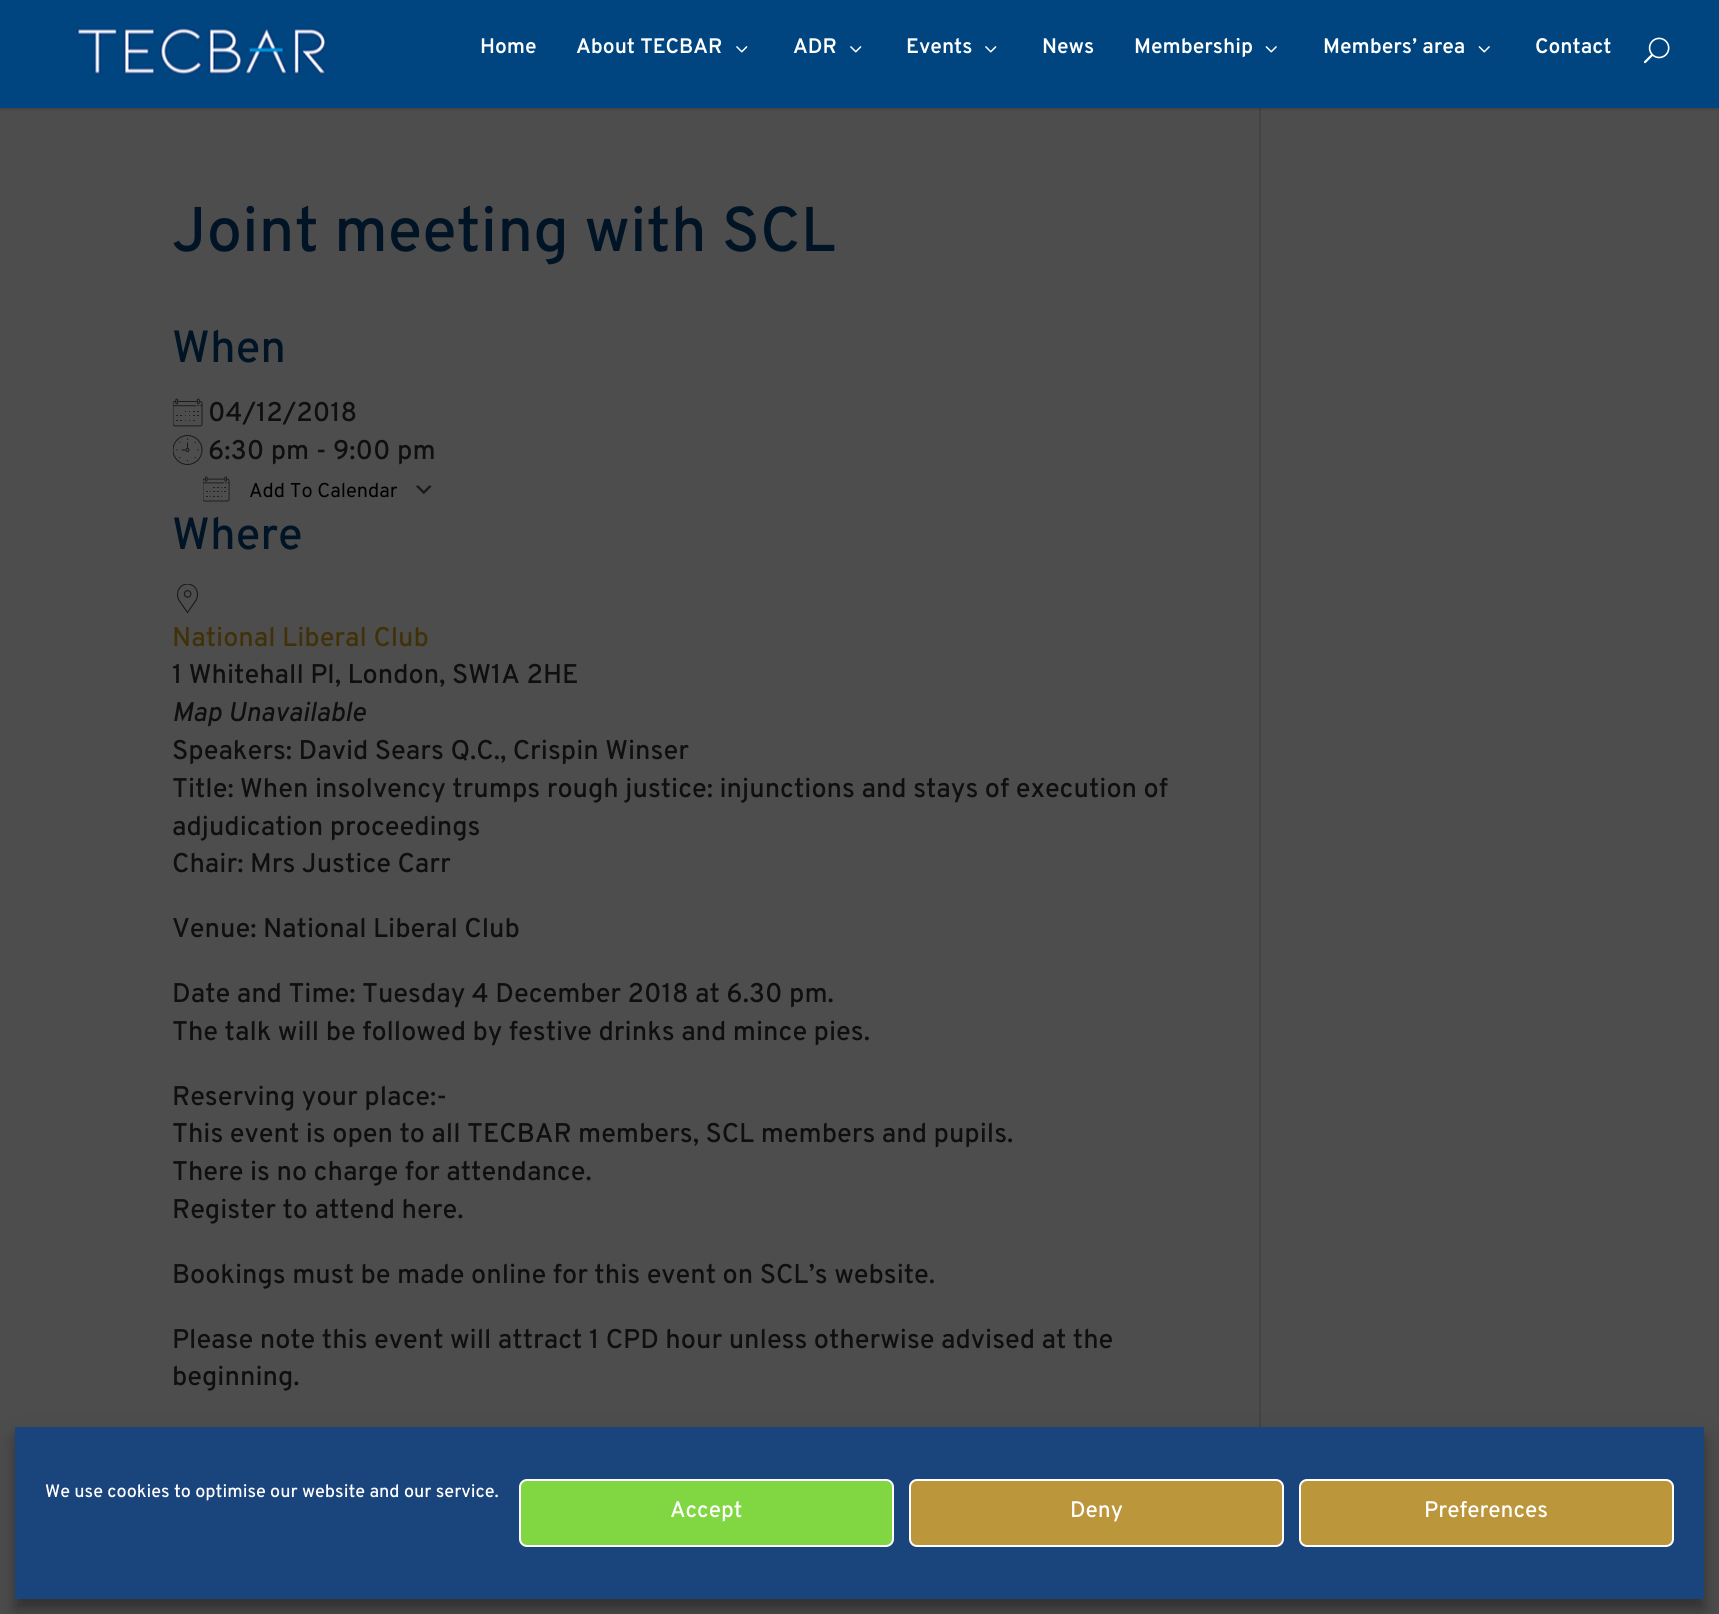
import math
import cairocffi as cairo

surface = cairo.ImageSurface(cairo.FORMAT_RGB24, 1719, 1614)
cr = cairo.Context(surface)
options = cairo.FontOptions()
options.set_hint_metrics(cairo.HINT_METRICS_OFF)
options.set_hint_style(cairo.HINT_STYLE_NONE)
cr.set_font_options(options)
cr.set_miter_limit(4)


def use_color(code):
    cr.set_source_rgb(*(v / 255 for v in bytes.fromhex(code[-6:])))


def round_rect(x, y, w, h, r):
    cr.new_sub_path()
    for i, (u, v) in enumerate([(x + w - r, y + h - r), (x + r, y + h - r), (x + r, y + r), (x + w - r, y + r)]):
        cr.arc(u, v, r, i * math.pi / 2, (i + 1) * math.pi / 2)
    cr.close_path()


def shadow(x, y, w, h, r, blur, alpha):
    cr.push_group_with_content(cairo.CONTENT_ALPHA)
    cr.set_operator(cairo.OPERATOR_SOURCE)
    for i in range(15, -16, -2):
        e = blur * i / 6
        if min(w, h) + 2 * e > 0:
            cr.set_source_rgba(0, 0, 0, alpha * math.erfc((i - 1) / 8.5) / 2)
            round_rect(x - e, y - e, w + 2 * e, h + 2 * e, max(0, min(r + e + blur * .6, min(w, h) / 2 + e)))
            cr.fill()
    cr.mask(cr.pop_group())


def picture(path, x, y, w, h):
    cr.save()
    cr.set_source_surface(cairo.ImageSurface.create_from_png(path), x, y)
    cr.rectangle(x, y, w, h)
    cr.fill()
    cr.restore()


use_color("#4d4d4d")
cr.paint()
use_color("#454545")
cr.rectangle(0, 108, 1719, 2)
cr.fill()
use_color("#004580")
cr.rectangle(0, 0, 1719, 108)
cr.fill()
picture("img1.png", 77, 27, 250, 48)
cr.select_font_face("Overpass SemiBold")
cr.set_font_size(21)
use_color("#ffffff")
cr.move_to(480, 53)
cr.show_text("Home")
cr.move_to(576, 53)
cr.show_text("About TECBAR")
picture("img2.png", 736, 46, 12, 7)
cr.move_to(793, 53)
cr.show_text("ADR")
picture("img2.png", 850, 46, 12, 7)
cr.move_to(906, 53)
cr.show_text("Events")
picture("img2.png", 985, 46, 12, 7)
cr.move_to(1042, 53)
cr.show_text("News")
cr.move_to(1134, 53)
cr.show_text("Membership")
picture("img3.png", 1265, 46, 12, 7)
cr.move_to(1323, 53)
cr.show_text("Members’ area")
picture("img3.png", 1478, 46, 12, 7)
cr.move_to(1535, 53)
cr.show_text("Contact")
picture("img4.png", 1643, 37, 27, 27)
cr.select_font_face("Overpass Medium")
cr.set_font_size(63)
use_color("#001425")
cr.move_to(172, 251)
cr.show_text("Joint meeting with SCL")
cr.set_font_size(45)
cr.move_to(172, 362)
cr.show_text("When")
picture("img5.png", 173, 398, 30, 29)
cr.set_font_size(27)
use_color("#0f0f0f")
cr.move_to(208, 421)
cr.show_text("04/12/2018")
picture("img6.png", 173, 435, 30, 30)
cr.move_to(208, 459)
cr.show_text("6:30 pm - 9:00 pm")
picture("img7.png", 416, 485, 16, 10)
picture("img8.png", 203, 476, 27, 26)
cr.select_font_face("Overpass")
cr.set_font_size(20)
use_color("#000000")
cr.move_to(249, 497)
cr.show_text("Add To Calendar")
cr.select_font_face("Overpass Medium")
cr.set_font_size(45)
use_color("#001425")
cr.move_to(172, 549)
cr.show_text("Where")
picture("img9.png", 177, 584, 21, 30)
cr.set_font_size(27)
use_color("#413108")
cr.move_to(172, 646)
cr.show_text("National Liberal Club")
use_color("#0f0f0f")
cr.move_to(172, 683)
cr.show_text("1 Whitehall Pl, London, SW1A 2HE")
cr.select_font_face("Overpass Medium", cairo.FONT_SLANT_ITALIC)
cr.move_to(172, 721)
cr.show_text("Map Unavailable")
cr.select_font_face("Overpass Medium")
cr.move_to(172, 759)
cr.show_text("Speakers: David Sears Q.C., Crispin Winser")
cr.move_to(172, 797)
cr.show_text("Title: When insolvency trumps rough justice: injunctions and stays of execution of")
cr.move_to(172, 835)
cr.show_text("adjudication proceedings")
cr.move_to(172, 872)
cr.show_text("Chair: Mrs Justice Carr")
cr.move_to(172, 937)
cr.show_text("Venue: National Liberal Club")
cr.move_to(172, 1002)
cr.show_text("Date and Time: Tuesday 4 December 2018 at 6.30 pm.")
cr.move_to(172, 1040)
cr.show_text("The talk will be followed by festive drinks and mince pies.")
cr.move_to(172, 1105)
cr.show_text("Reserving your place:-")
cr.move_to(172, 1142)
cr.show_text("This event is open to all TECBAR members, SCL members and pupils.")
cr.move_to(172, 1180)
cr.show_text("There is no charge for attendance.")
cr.move_to(172, 1218)
cr.show_text("Register to attend here.")
cr.move_to(172, 1283)
cr.show_text("Bookings must be made online for this event on SCL’s website.")
cr.move_to(172, 1348)
cr.show_text("Please note this event will attract 1 CPD hour unless otherwise advised at the")
cr.move_to(172, 1385)
cr.show_text("beginning.")
use_color("#444444")
cr.rectangle(1259, 108, 2, 1319)
cr.fill()
use_color("#3d3d3d")
cr.rectangle(1259, 108, 2, 2)
cr.fill()
use_color("#000000")
shadow(15, 1436, 1689, 172, 0, 4.5, 0.23)
shadow(15, 1442, 1689, 172, 0, 15, 0.19)
use_color("#1a447c")
cr.rectangle(15, 1427, 1689, 172)
cr.fill()
cr.set_font_size(18)
use_color("#ffffff")
cr.move_to(45, 1497)
cr.show_text("We use cookies to optimise our website and our service.")
use_color("#81d742")
round_rect(520, 1480, 373, 66, 7)
cr.fill_preserve()
use_color("#ffffff")
cr.stroke()
cr.set_font_size(22.5)
cr.move_to(670, 1517)
cr.show_text("Accept")
use_color("#bb963a")
round_rect(910, 1480, 373, 66, 7)
cr.fill_preserve()
use_color("#ffffff")
cr.stroke()
cr.move_to(1070, 1517)
cr.show_text("Deny")
use_color("#bb963a")
round_rect(1300, 1480, 373, 66, 7)
cr.fill_preserve()
use_color("#ffffff")
cr.stroke()
cr.move_to(1424, 1517)
cr.show_text("Preferences")
surface.write_to_png("result.png")
